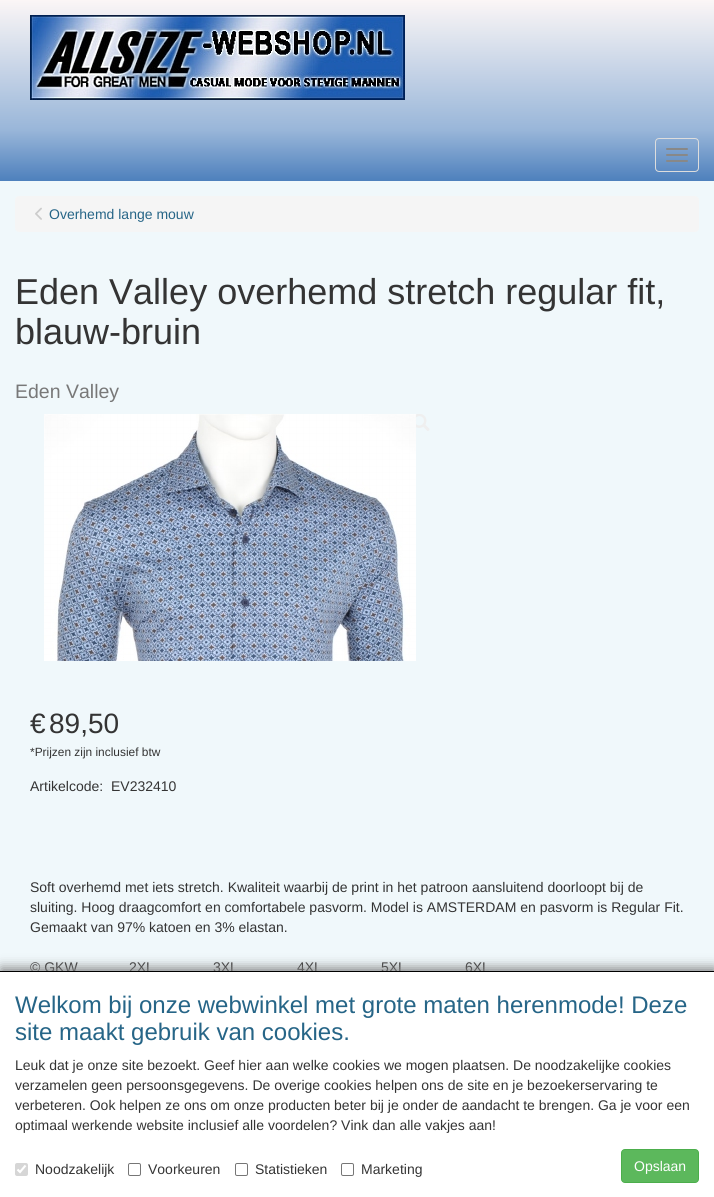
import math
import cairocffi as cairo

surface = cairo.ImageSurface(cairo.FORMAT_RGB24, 714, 1197)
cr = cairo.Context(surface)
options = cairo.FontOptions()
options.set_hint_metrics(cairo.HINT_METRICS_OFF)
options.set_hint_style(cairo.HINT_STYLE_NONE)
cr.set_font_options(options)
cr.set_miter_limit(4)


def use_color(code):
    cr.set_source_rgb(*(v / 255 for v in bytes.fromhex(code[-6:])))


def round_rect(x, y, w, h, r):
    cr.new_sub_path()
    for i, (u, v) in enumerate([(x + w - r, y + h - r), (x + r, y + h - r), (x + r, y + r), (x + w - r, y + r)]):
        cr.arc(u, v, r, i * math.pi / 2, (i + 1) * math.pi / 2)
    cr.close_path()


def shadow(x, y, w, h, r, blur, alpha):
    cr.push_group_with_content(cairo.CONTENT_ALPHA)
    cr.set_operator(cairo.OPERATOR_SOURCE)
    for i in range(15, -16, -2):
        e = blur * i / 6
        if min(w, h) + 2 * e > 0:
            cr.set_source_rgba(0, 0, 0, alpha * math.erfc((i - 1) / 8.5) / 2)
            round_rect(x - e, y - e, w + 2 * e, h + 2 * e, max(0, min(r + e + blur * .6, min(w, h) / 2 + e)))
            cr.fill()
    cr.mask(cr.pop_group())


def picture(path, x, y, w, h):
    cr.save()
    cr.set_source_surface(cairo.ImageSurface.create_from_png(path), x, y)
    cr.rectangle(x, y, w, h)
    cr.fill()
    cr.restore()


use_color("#f0f8fb")
cr.paint()
gradient = cairo.LinearGradient(357, 0, 357, 130)
gradient.add_color_stop_rgba(0, 0.984, 0.965, 0.965, 1)
gradient.add_color_stop_rgba(1, 0.6, 0.714, 0.851, 1)
cr.set_source(gradient)
cr.rectangle(0, 0, 714, 130)
cr.fill()
picture("img1.png", 30, 15, 375, 85)
use_color("#4f81bd")
cr.rectangle(0, 180, 714, 1)
cr.fill()
gradient = cairo.LinearGradient(357, 130, 357, 180)
gradient.add_color_stop_rgba(0, 0.6, 0.714, 0.851, 1)
gradient.add_color_stop_rgba(1, 0.31, 0.506, 0.741, 1)
cr.set_source(gradient)
cr.rectangle(0, 130, 714, 50)
cr.fill()
round_rect(655.5, 138.5, 43, 33, 3.5)
use_color("#dddddd")
cr.set_line_width(1)
cr.stroke()
use_color("#888888")
round_rect(666, 148, 22, 2, 1)
cr.fill()
round_rect(666, 154, 22, 2, 1)
cr.fill()
round_rect(666, 160, 22, 2, 1)
cr.fill()
use_color("#f5f5f5")
round_rect(15, 196, 684, 36, 4)
cr.fill()
picture("img2.png", 35, 207, 7, 13)
cr.select_font_face("Liberation Sans")
cr.set_font_size(14)
use_color("#266587")
cr.move_to(49, 219)
cr.show_text("Overhemd lange mouw")
cr.set_font_size(36)
use_color("#343434")
cr.move_to(15, 304)
cr.show_text("Eden Valley overhemd stretch regular fit,")
cr.move_to(15, 344)
cr.show_text("blauw-bruin")
cr.set_font_size(19.5)
use_color("#787878")
cr.move_to(15, 398)
cr.show_text("Eden Valley")
picture("img3.png", 44, 414, 372, 247)
picture("img4.png", 416, 414, 14, 17)
cr.set_font_size(28)
use_color("#343434")
cr.move_to(30, 733)
cr.show_text("€")
cr.move_to(49, 733)
cr.show_text("89,50")
cr.set_font_size(11.9)
cr.move_to(30, 756)
cr.show_text("*Prijzen zijn inclusief btw")
cr.set_font_size(14)
cr.move_to(30, 791)
cr.show_text("Artikelcode:")
cr.move_to(111, 791)
cr.show_text("EV232410")
cr.move_to(30, 892)
cr.show_text("Soft overhemd met iets stretch. Kwaliteit waarbij de print in het patroon aansluitend doorloopt bij de")
cr.move_to(30, 912)
cr.show_text("sluiting. Hoog draagcomfort en comfortabele pasvorm. Model is AMSTERDAM en pasvorm is Regular Fit.")
cr.move_to(30, 932)
cr.show_text("Gemaakt van 97% katoen en 3% elastan.")
cr.move_to(30, 972)
cr.show_text("© GKW")
cr.move_to(129, 972)
cr.show_text("2XL")
cr.move_to(213, 972)
cr.show_text("3XL")
cr.move_to(297, 972)
cr.show_text("4XL")
cr.move_to(381, 972)
cr.show_text("5XL")
cr.move_to(465, 972)
cr.show_text("6XL")
use_color("#808080")
shadow(1, 968, 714, 226, 0, 6, 1)
use_color("#ffffff")
cr.rectangle(0, 972, 714, 225)
cr.fill()
use_color("#000000")
cr.rectangle(0, 971, 714, 1)
cr.fill()
cr.set_font_size(24)
use_color("#266587")
cr.move_to(15, 1013)
cr.show_text("Welkom bij onze webwinkel met grote maten herenmode! Deze")
cr.move_to(15, 1040)
cr.show_text("site maakt gebruik van cookies.")
cr.set_font_size(14)
use_color("#343434")
cr.move_to(15, 1070)
cr.show_text("Leuk dat je onze site bezoekt. Geef hier aan welke cookies we mogen plaatsen. De noodzakelijke cookies")
cr.move_to(15, 1090)
cr.show_text("verzamelen geen persoonsgegevens. De overige cookies helpen ons de site en je bezoekerservaring te")
cr.move_to(15, 1110)
cr.show_text("verbeteren. Ook helpen ze ons om onze producten beter bij je onder de aandacht te brengen. Ga je voor een")
cr.move_to(15, 1130)
cr.show_text("optimaal werkende website inclusief alle voordelen? Vink dan alle vakjes aan!")
use_color("#d6d6d6")
round_rect(15, 1163, 13, 13, 2)
cr.fill()
cr.new_path()
cr.move_to(17.5, 1169.5)
cr.line_to(20, 1172)
cr.line_to(25.5, 1165.5)
use_color("#ffffff")
cr.set_line_width(2.1)
cr.stroke()
use_color("#343434")
cr.move_to(35, 1174)
cr.show_text("Noodzakelijk")
round_rect(128.5, 1163.5, 12, 12, 1.5)
use_color("#767676")
cr.set_line_width(1)
cr.stroke()
use_color("#343434")
cr.move_to(148, 1174)
cr.show_text("Voorkeuren")
round_rect(235.5, 1163.5, 12, 12, 1.5)
use_color("#767676")
cr.stroke()
use_color("#343434")
cr.move_to(255, 1174)
cr.show_text("Statistieken")
round_rect(341.5, 1163.5, 12, 12, 1.5)
use_color("#767676")
cr.stroke()
use_color("#343434")
cr.move_to(361, 1174)
cr.show_text("Marketing")
use_color("#5cb85c")
round_rect(621.5, 1149.5, 77, 33, 3.5)
cr.fill_preserve()
use_color("#4cae4c")
cr.stroke()
use_color("#fefefe")
cr.move_to(634, 1171)
cr.show_text("Opslaan")
surface.write_to_png("result.png")
